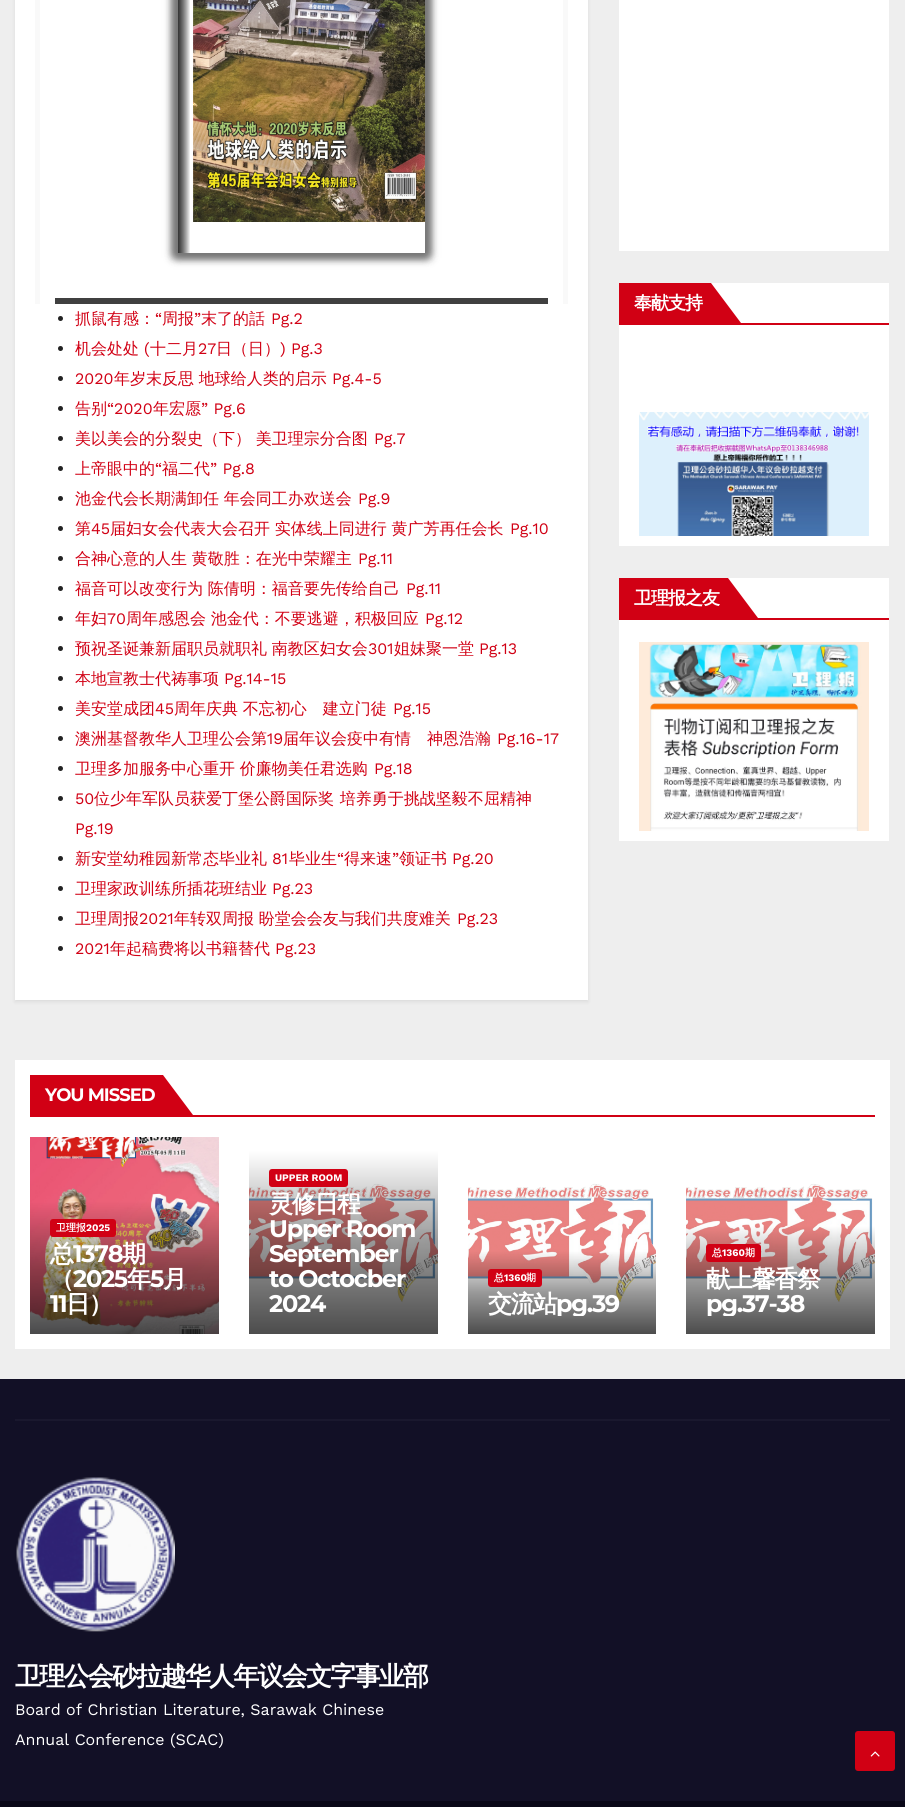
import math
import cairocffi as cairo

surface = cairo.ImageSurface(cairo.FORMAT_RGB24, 905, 1807)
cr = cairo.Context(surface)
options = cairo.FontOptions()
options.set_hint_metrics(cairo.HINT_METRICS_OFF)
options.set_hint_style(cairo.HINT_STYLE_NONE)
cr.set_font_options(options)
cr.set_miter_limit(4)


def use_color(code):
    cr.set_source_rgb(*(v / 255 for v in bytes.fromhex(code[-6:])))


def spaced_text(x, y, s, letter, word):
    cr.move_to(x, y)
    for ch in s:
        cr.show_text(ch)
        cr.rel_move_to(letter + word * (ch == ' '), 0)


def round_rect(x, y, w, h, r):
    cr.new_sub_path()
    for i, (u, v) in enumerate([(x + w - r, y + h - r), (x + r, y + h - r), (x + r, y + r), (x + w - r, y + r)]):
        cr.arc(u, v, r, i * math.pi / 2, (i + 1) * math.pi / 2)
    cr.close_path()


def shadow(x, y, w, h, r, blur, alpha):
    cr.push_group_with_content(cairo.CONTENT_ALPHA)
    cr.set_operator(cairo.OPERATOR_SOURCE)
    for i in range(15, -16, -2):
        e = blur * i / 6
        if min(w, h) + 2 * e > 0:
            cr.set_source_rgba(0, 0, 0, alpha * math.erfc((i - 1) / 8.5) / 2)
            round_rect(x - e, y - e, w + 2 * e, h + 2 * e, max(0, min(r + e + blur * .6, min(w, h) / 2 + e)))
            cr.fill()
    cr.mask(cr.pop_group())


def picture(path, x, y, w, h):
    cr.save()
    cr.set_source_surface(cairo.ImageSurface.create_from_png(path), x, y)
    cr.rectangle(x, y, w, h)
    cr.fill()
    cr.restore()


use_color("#eeeeee")
cr.paint()
use_color("#000000")
shadow(15, -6, 573, 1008, 0, 2, 0.08)
use_color("#ffffff")
cr.rectangle(15, 0, 573, 1000)
cr.fill()
picture("img1.png", 35, 0, 533, 304)
use_color("#222222")
cr.arc(60.5, 318.5, 2.5, 0, 2 * math.pi)
cr.fill()
cr.select_font_face("WenQuanYi Zen Hei Medium")
cr.set_font_size(16)
use_color("#d10014")
cr.move_to(75, 324)
cr.show_text("抓鼠有感：")
cr.select_font_face("Work Sans")
cr.move_to(155, 324)
cr.show_text("“")
cr.select_font_face("WenQuanYi Zen Hei Medium")
cr.move_to(162, 324)
cr.show_text("周报")
cr.select_font_face("Work Sans")
cr.move_to(194, 324)
cr.show_text("”")
cr.select_font_face("WenQuanYi Zen Hei Medium")
cr.move_to(201, 324)
cr.show_text("末了的話")
cr.select_font_face("Work Sans")
cr.move_to(271, 324)
cr.show_text("Pg.2")
use_color("#222222")
cr.new_path()
cr.arc(60.5, 348.5, 2.5, 0, 2 * math.pi)
cr.fill()
cr.select_font_face("WenQuanYi Zen Hei Medium")
use_color("#d10014")
cr.move_to(75, 354)
cr.show_text("机会处处")
cr.select_font_face("Work Sans")
cr.move_to(144, 354)
cr.show_text("(")
cr.select_font_face("WenQuanYi Zen Hei Medium")
cr.move_to(150, 354)
cr.show_text("十二月")
cr.select_font_face("Work Sans")
cr.move_to(198, 354)
cr.show_text("27")
cr.select_font_face("WenQuanYi Zen Hei Medium")
cr.move_to(216, 354)
cr.show_text("日（日）")
cr.select_font_face("Work Sans")
cr.move_to(280, 354)
cr.show_text(") Pg.3")
use_color("#222222")
cr.new_path()
cr.arc(60.5, 378.5, 2.5, 0, 2 * math.pi)
cr.fill()
use_color("#d10014")
cr.move_to(75, 384)
cr.show_text("2020")
cr.select_font_face("WenQuanYi Zen Hei Medium")
cr.move_to(114, 384)
cr.show_text("年岁末反思 地球给人类的启示")
cr.select_font_face("Work Sans")
cr.move_to(332, 384)
cr.show_text("Pg.4-5")
use_color("#222222")
cr.new_path()
cr.arc(60.5, 408.5, 2.5, 0, 2 * math.pi)
cr.fill()
cr.select_font_face("WenQuanYi Zen Hei Medium")
use_color("#d10014")
cr.move_to(75, 414)
cr.show_text("告别")
cr.select_font_face("Work Sans")
cr.move_to(107, 414)
cr.show_text("“2020")
cr.select_font_face("WenQuanYi Zen Hei Medium")
cr.move_to(153, 414)
cr.show_text("年宏愿")
cr.select_font_face("Work Sans")
cr.move_to(201, 414)
cr.show_text("” Pg.6")
use_color("#222222")
cr.new_path()
cr.arc(60.5, 438.5, 2.5, 0, 2 * math.pi)
cr.fill()
cr.select_font_face("WenQuanYi Zen Hei Medium")
use_color("#d10014")
cr.move_to(75, 444)
cr.show_text("美以美会的分裂史（下） 美卫理宗分合图")
cr.select_font_face("Work Sans")
cr.move_to(374, 444)
cr.show_text("Pg.7")
use_color("#222222")
cr.new_path()
cr.arc(60.5, 468.5, 2.5, 0, 2 * math.pi)
cr.fill()
cr.select_font_face("WenQuanYi Zen Hei Medium")
use_color("#d10014")
cr.move_to(75, 474)
cr.show_text("上帝眼中的")
cr.select_font_face("Work Sans")
cr.move_to(155, 474)
cr.show_text("“")
cr.select_font_face("WenQuanYi Zen Hei Medium")
cr.move_to(162, 474)
cr.show_text("福二代")
cr.select_font_face("Work Sans")
cr.move_to(210, 474)
cr.show_text("” Pg.8")
use_color("#222222")
cr.new_path()
cr.arc(60.5, 498.5, 2.5, 0, 2 * math.pi)
cr.fill()
cr.select_font_face("WenQuanYi Zen Hei Medium")
use_color("#d10014")
cr.move_to(75, 504)
cr.show_text("池金代会长期满卸任 年会同工办欢送会")
cr.select_font_face("Work Sans")
cr.move_to(358, 504)
cr.show_text("Pg.9")
use_color("#222222")
cr.new_path()
cr.arc(60.5, 528.5, 2.5, 0, 2 * math.pi)
cr.fill()
cr.select_font_face("WenQuanYi Zen Hei Medium")
use_color("#d10014")
cr.move_to(75, 534)
cr.show_text("第")
cr.select_font_face("Work Sans")
cr.move_to(91, 534)
cr.show_text("45")
cr.select_font_face("WenQuanYi Zen Hei Medium")
cr.move_to(110, 534)
cr.show_text("届妇女会代表大会召开 实体线上同进行 黄广芳再任会长")
cr.select_font_face("Work Sans")
cr.move_to(510, 534)
cr.show_text("Pg.10")
use_color("#222222")
cr.new_path()
cr.arc(60.5, 558.5, 2.5, 0, 2 * math.pi)
cr.fill()
cr.select_font_face("WenQuanYi Zen Hei Medium")
use_color("#d10014")
cr.move_to(75, 564)
cr.show_text("合神心意的人生 黄敬胜：在光中荣耀主")
cr.select_font_face("Work Sans")
cr.move_to(358, 564)
cr.show_text("Pg.11")
use_color("#222222")
cr.new_path()
cr.arc(60.5, 588.5, 2.5, 0, 2 * math.pi)
cr.fill()
cr.select_font_face("WenQuanYi Zen Hei Medium")
use_color("#d10014")
cr.move_to(75, 594)
cr.show_text("福音可以改变行为 陈倩明：福音要先传给自己")
cr.select_font_face("Work Sans")
cr.move_to(406, 594)
cr.show_text("Pg.11")
use_color("#222222")
cr.new_path()
cr.arc(60.5, 618.5, 2.5, 0, 2 * math.pi)
cr.fill()
cr.select_font_face("WenQuanYi Zen Hei Medium")
use_color("#d10014")
cr.move_to(75, 624)
cr.show_text("年妇")
cr.select_font_face("Work Sans")
cr.move_to(107, 624)
cr.show_text("70")
cr.select_font_face("WenQuanYi Zen Hei Medium")
cr.move_to(126, 624)
cr.show_text("周年感恩会 池金代：不要逃避，积极回应")
cr.select_font_face("Work Sans")
cr.move_to(425, 624)
cr.show_text("Pg.12")
use_color("#222222")
cr.new_path()
cr.arc(60.5, 648.5, 2.5, 0, 2 * math.pi)
cr.fill()
cr.select_font_face("WenQuanYi Zen Hei Medium")
use_color("#d10014")
cr.move_to(75, 654)
cr.show_text("预祝圣诞兼新届职员就职礼 南教区妇女会")
cr.select_font_face("Work Sans")
cr.move_to(368, 654)
cr.show_text("301")
cr.select_font_face("WenQuanYi Zen Hei Medium")
cr.move_to(394, 654)
cr.show_text("姐妹聚一堂")
cr.select_font_face("Work Sans")
cr.move_to(479, 654)
cr.show_text("Pg.13")
use_color("#222222")
cr.new_path()
cr.arc(60.5, 678.5, 2.5, 0, 2 * math.pi)
cr.fill()
cr.select_font_face("WenQuanYi Zen Hei Medium")
use_color("#d10014")
cr.move_to(75, 684)
cr.show_text("本地宣教士代祷事项")
cr.select_font_face("Work Sans")
cr.move_to(224, 684)
cr.show_text("Pg.14-15")
use_color("#222222")
cr.new_path()
cr.arc(60.5, 708.5, 2.5, 0, 2 * math.pi)
cr.fill()
cr.select_font_face("WenQuanYi Zen Hei Medium")
use_color("#d10014")
cr.move_to(75, 714)
cr.show_text("美安堂成团")
cr.select_font_face("Work Sans")
cr.move_to(155, 714)
cr.show_text("45")
cr.select_font_face("WenQuanYi Zen Hei Medium")
cr.move_to(174, 714)
cr.show_text("周年庆典 不忘初心　建立门徒")
cr.select_font_face("Work Sans")
cr.move_to(393, 714)
cr.show_text("Pg.15")
use_color("#222222")
cr.new_path()
cr.arc(60.5, 738.5, 2.5, 0, 2 * math.pi)
cr.fill()
cr.select_font_face("WenQuanYi Zen Hei Medium")
use_color("#d10014")
cr.move_to(75, 744)
cr.show_text("澳洲基督教华人卫理公会第")
cr.select_font_face("Work Sans")
cr.move_to(267, 744)
cr.show_text("19")
cr.select_font_face("WenQuanYi Zen Hei Medium")
cr.move_to(283, 744)
cr.show_text("届年议会疫中有情　神恩浩瀚")
cr.select_font_face("Work Sans")
cr.move_to(497, 744)
cr.show_text("Pg.16-17")
use_color("#222222")
cr.new_path()
cr.arc(60.5, 768.5, 2.5, 0, 2 * math.pi)
cr.fill()
cr.select_font_face("WenQuanYi Zen Hei Medium")
use_color("#d10014")
cr.move_to(75, 774)
cr.show_text("卫理多加服务中心重开 价廉物美任君选购")
cr.select_font_face("Work Sans")
cr.move_to(374, 774)
cr.show_text("Pg.18")
use_color("#222222")
cr.new_path()
cr.arc(60.5, 798.5, 2.5, 0, 2 * math.pi)
cr.fill()
use_color("#d10014")
cr.move_to(75, 804)
cr.show_text("50")
cr.select_font_face("WenQuanYi Zen Hei Medium")
spaced_text(94, 804, "位少年军队员获爱丁堡公爵国际奖 培养勇于挑战坚毅不屈精神", 0, 1)
cr.select_font_face("Work Sans")
cr.move_to(75, 834)
cr.show_text("Pg.19")
use_color("#222222")
cr.new_path()
cr.arc(60.5, 858.5, 2.5, 0, 2 * math.pi)
cr.fill()
cr.select_font_face("WenQuanYi Zen Hei Medium")
use_color("#d10014")
cr.move_to(75, 864)
cr.show_text("新安堂幼稚园新常态毕业礼")
cr.select_font_face("Work Sans")
cr.move_to(272, 864)
cr.show_text("81")
cr.select_font_face("WenQuanYi Zen Hei Medium")
cr.move_to(289, 864)
cr.show_text("毕业生")
cr.select_font_face("Work Sans")
cr.move_to(337, 864)
cr.show_text("“")
cr.select_font_face("WenQuanYi Zen Hei Medium")
cr.move_to(344, 864)
cr.show_text("得来速")
cr.select_font_face("Work Sans")
cr.move_to(392, 864)
cr.show_text("”")
cr.select_font_face("WenQuanYi Zen Hei Medium")
cr.move_to(399, 864)
cr.show_text("领证书")
cr.select_font_face("Work Sans")
cr.move_to(452, 864)
cr.show_text("Pg.20")
use_color("#222222")
cr.new_path()
cr.arc(60.5, 888.5, 2.5, 0, 2 * math.pi)
cr.fill()
cr.select_font_face("WenQuanYi Zen Hei Medium")
use_color("#d10014")
cr.move_to(75, 894)
cr.show_text("卫理家政训练所插花班结业")
cr.select_font_face("Work Sans")
cr.move_to(272, 894)
cr.show_text("Pg.23")
use_color("#222222")
cr.new_path()
cr.arc(60.5, 918.5, 2.5, 0, 2 * math.pi)
cr.fill()
cr.select_font_face("WenQuanYi Zen Hei Medium")
use_color("#d10014")
cr.move_to(75, 924)
cr.show_text("卫理周报")
cr.select_font_face("Work Sans")
cr.move_to(139, 924)
cr.show_text("2021")
cr.select_font_face("WenQuanYi Zen Hei Medium")
cr.move_to(174, 924)
cr.show_text("年转双周报 盼堂会会友与我们共度难关")
cr.select_font_face("Work Sans")
cr.move_to(457, 924)
cr.show_text("Pg.23")
use_color("#222222")
cr.new_path()
cr.arc(60.5, 948.5, 2.5, 0, 2 * math.pi)
cr.fill()
use_color("#d10014")
cr.move_to(75, 954)
cr.show_text("2021")
cr.select_font_face("WenQuanYi Zen Hei Medium")
cr.move_to(110, 954)
cr.show_text("年起稿费将以书籍替代")
cr.select_font_face("Work Sans")
cr.move_to(275, 954)
cr.show_text("Pg.23")
use_color("#ffffff")
cr.rectangle(619, 0, 270, 251)
cr.fill()
cr.rectangle(619, 283, 270, 263)
cr.fill()
use_color("#d10014")
cr.rectangle(619, 323, 270, 2)
cr.fill()
cr.rectangle(619, 283, 92, 40)
cr.fill()
cr.select_font_face("WenQuanYi Zen Hei", cairo.FONT_SLANT_NORMAL, cairo.FONT_WEIGHT_BOLD)
cr.set_font_size(18)
use_color("#ffffff")
spaced_text(634, 309, "奉献支持", -1, 0)
use_color("#d10014")
cr.new_path()
cr.move_to(711, 323)
cr.line_to(711, 283)
cr.line_to(741, 323)
cr.close_path()
cr.fill()
picture("img2.png", 639, 412, 230, 124)
use_color("#ffffff")
cr.rectangle(619, 578, 270, 263)
cr.fill()
use_color("#d10014")
cr.rectangle(619, 618, 270, 2)
cr.fill()
cr.rectangle(619, 578, 109, 40)
cr.fill()
use_color("#ffffff")
spaced_text(634, 604, "卫理报之友", -1, 0)
use_color("#d10014")
cr.new_path()
cr.move_to(728, 618)
cr.line_to(728, 578)
cr.line_to(758, 618)
cr.close_path()
cr.fill()
picture("img3.png", 639, 642, 230, 189)
use_color("#ffffff")
cr.rectangle(15, 1060, 875, 289)
cr.fill()
use_color("#d10014")
cr.rectangle(30, 1115, 845, 2)
cr.fill()
cr.rectangle(30, 1075, 133, 40)
cr.fill()
cr.select_font_face("Montserrat", cairo.FONT_SLANT_NORMAL, cairo.FONT_WEIGHT_BOLD)
use_color("#ffffff")
spaced_text(45, 1101, "YOU MISSED", -1, 0)
use_color("#d10014")
cr.new_path()
cr.move_to(163, 1115)
cr.line_to(163, 1075)
cr.line_to(193, 1115)
cr.close_path()
cr.fill()
picture("img4.png", 30, 1137, 189, 197)
round_rect(50, 1219, 66, 18, 3)
cr.fill()
cr.select_font_face("WenQuanYi Zen Hei", cairo.FONT_SLANT_NORMAL, cairo.FONT_WEIGHT_BOLD)
cr.set_font_size(10)
use_color("#ffffff")
cr.move_to(56, 1231)
cr.show_text("卫理报")
cr.select_font_face("Work Sans", cairo.FONT_SLANT_NORMAL, cairo.FONT_WEIGHT_BOLD)
cr.move_to(86, 1231)
cr.show_text("2025")
cr.select_font_face("WenQuanYi Zen Hei", cairo.FONT_SLANT_NORMAL, cairo.FONT_WEIGHT_BOLD)
cr.set_font_size(24)
spaced_text(50, 1262, "总", -1.25, 0)
cr.select_font_face("Montserrat", cairo.FONT_SLANT_NORMAL, cairo.FONT_WEIGHT_BOLD)
spaced_text(73, 1262, "1378", -1.25, 0)
cr.select_font_face("WenQuanYi Zen Hei", cairo.FONT_SLANT_NORMAL, cairo.FONT_WEIGHT_BOLD)
spaced_text(122, 1262, "期", -1.25, 0)
spaced_text(50, 1287, "（", -1.25, 0)
cr.select_font_face("Montserrat", cairo.FONT_SLANT_NORMAL, cairo.FONT_WEIGHT_BOLD)
spaced_text(73, 1287, "2025", -1.25, 0)
cr.select_font_face("WenQuanYi Zen Hei", cairo.FONT_SLANT_NORMAL, cairo.FONT_WEIGHT_BOLD)
spaced_text(127, 1287, "年", -1.25, 0)
cr.select_font_face("Montserrat", cairo.FONT_SLANT_NORMAL, cairo.FONT_WEIGHT_BOLD)
spaced_text(150, 1287, "5", -1.25, 0)
cr.select_font_face("WenQuanYi Zen Hei", cairo.FONT_SLANT_NORMAL, cairo.FONT_WEIGHT_BOLD)
spaced_text(163, 1287, "月", -1.25, 0)
cr.select_font_face("Montserrat", cairo.FONT_SLANT_NORMAL, cairo.FONT_WEIGHT_BOLD)
spaced_text(50, 1312, "11", -1.25, 0)
cr.select_font_face("WenQuanYi Zen Hei", cairo.FONT_SLANT_NORMAL, cairo.FONT_WEIGHT_BOLD)
spaced_text(66, 1312, "日）", -1.25, 0)
picture("img5.png", 249, 1137, 189, 197)
use_color("#d10014")
round_rect(269, 1169, 79, 18, 3)
cr.fill()
cr.select_font_face("Work Sans", cairo.FONT_SLANT_NORMAL, cairo.FONT_WEIGHT_BOLD)
cr.set_font_size(10)
use_color("#ffffff")
cr.move_to(275, 1181)
cr.show_text("UPPER ROOM")
cr.select_font_face("WenQuanYi Zen Hei", cairo.FONT_SLANT_NORMAL, cairo.FONT_WEIGHT_BOLD)
cr.set_font_size(24)
spaced_text(269, 1212, "灵修日程", -1.25, 0)
cr.select_font_face("Montserrat", cairo.FONT_SLANT_NORMAL, cairo.FONT_WEIGHT_BOLD)
spaced_text(269, 1237, "Upper Room", -1.25, 0)
spaced_text(269, 1262, "September", -1.25, 0)
spaced_text(269, 1287, "to Octocber", -1.25, 0)
spaced_text(269, 1312, "2024", -1.25, 0)
picture("img6.png", 468, 1137, 188, 197)
use_color("#d10014")
round_rect(488, 1269, 54, 18, 3)
cr.fill()
cr.select_font_face("WenQuanYi Zen Hei", cairo.FONT_SLANT_NORMAL, cairo.FONT_WEIGHT_BOLD)
cr.set_font_size(10)
use_color("#ffffff")
cr.move_to(494, 1281)
cr.show_text("总")
cr.select_font_face("Work Sans", cairo.FONT_SLANT_NORMAL, cairo.FONT_WEIGHT_BOLD)
cr.move_to(504, 1281)
cr.show_text("1360")
cr.select_font_face("WenQuanYi Zen Hei", cairo.FONT_SLANT_NORMAL, cairo.FONT_WEIGHT_BOLD)
cr.move_to(526, 1281)
cr.show_text("期")
cr.set_font_size(24)
spaced_text(488, 1312, "交流站", -1.25, 0)
cr.save()
cr.rectangle(488, 1291, 148, 25)
cr.clip()
cr.select_font_face("Montserrat", cairo.FONT_SLANT_NORMAL, cairo.FONT_WEIGHT_BOLD)
spaced_text(556, 1312, "pg.39", -1.25, 0)
cr.restore()
picture("img7.png", 686, 1137, 189, 197)
use_color("#d10014")
round_rect(706, 1244, 55, 18, 3)
cr.fill()
cr.set_font_size(10)
use_color("#ffffff")
cr.move_to(712, 1256)
cr.show_text("总")
cr.select_font_face("Work Sans", cairo.FONT_SLANT_NORMAL, cairo.FONT_WEIGHT_BOLD)
cr.move_to(722, 1256)
cr.show_text("1360")
cr.select_font_face("WenQuanYi Zen Hei", cairo.FONT_SLANT_NORMAL, cairo.FONT_WEIGHT_BOLD)
cr.move_to(745, 1256)
cr.show_text("期")
cr.set_font_size(24)
spaced_text(706, 1287, "献上馨香祭", -1.25, 0)
cr.save()
cr.rectangle(706, 1266, 149, 50)
cr.clip()
cr.select_font_face("Montserrat", cairo.FONT_SLANT_NORMAL, cairo.FONT_WEIGHT_BOLD)
spaced_text(706, 1312, "pg.37-38", -1.25, 0)
cr.restore()
use_color("#121026")
cr.rectangle(0, 1379, 905, 422)
cr.fill()
use_color("#1a182e")
cr.rectangle(15, 1419, 875, 2)
cr.fill()
picture("img8.png", 16, 1477, 159, 155)
cr.set_font_size(26)
use_color("#ffffff")
spaced_text(15, 1685, "卫理公会砂拉越华人年议会文字事业部", -1.75, 0)
cr.select_font_face("Work Sans")
cr.set_font_size(16)
cr.move_to(15, 1715)
cr.show_text("Board of Christian Literature, Sarawak Chinese")
cr.move_to(15, 1745)
cr.show_text("Annual Conference (SCAC)")
use_color("#090818")
cr.rectangle(0, 1801, 905, 6)
cr.fill()
use_color("#d10014")
round_rect(856, 1732, 38, 38, 2)
cr.fill_preserve()
cr.stroke()
picture("img9.png", 870, 1751, 10, 6)
surface.write_to_png("result.png")
